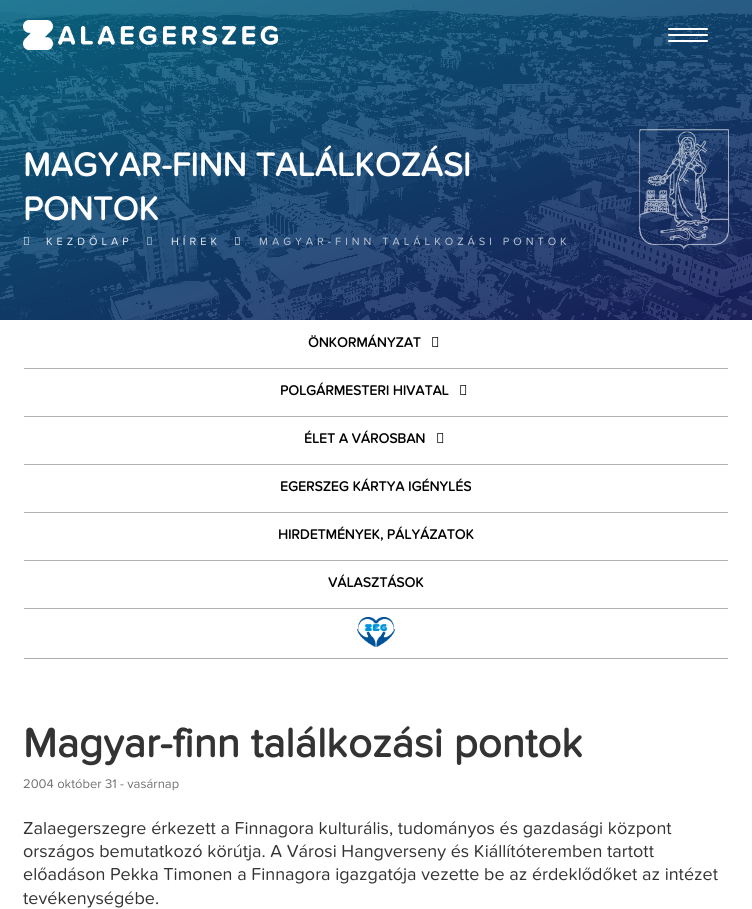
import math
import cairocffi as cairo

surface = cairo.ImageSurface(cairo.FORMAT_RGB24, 752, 909)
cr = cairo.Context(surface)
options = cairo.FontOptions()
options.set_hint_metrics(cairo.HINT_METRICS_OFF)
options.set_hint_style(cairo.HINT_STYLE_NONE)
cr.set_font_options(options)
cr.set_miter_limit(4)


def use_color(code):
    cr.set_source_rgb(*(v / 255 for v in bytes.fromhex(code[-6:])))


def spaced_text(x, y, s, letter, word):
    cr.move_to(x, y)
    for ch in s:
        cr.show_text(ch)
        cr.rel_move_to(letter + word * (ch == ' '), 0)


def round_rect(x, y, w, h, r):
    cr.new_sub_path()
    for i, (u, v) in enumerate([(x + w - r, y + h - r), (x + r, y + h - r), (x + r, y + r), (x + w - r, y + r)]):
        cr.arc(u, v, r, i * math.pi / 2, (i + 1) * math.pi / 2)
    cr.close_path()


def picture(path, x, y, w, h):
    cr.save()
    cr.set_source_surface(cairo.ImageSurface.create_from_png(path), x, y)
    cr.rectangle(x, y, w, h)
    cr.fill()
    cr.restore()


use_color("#ffffff")
cr.paint()
gradient = cairo.LinearGradient(287, -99, 465, 419)
gradient.add_color_stop_rgba(0, 0.035, 0.42, 0.537, 1)
gradient.add_color_stop_rgba(1, 0.102, 0.118, 0.369, 1)
cr.set_source(gradient)
cr.rectangle(0, 0, 752, 320)
cr.fill()
picture("img2.png", 0, 0, 752, 320)
picture("img1.png", 23, 20, 255, 30)
use_color("#ffffff")
round_rect(668, 28, 40, 2, 1)
cr.fill()
round_rect(668, 34, 40, 2, 1)
cr.fill()
round_rect(668, 40, 40, 2, 1)
cr.fill()
cr.select_font_face("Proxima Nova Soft", cairo.FONT_SLANT_NORMAL, cairo.FONT_WEIGHT_BOLD)
cr.set_font_size(34)
use_color("#fdfdfd")
cr.move_to(23, 176)
cr.show_text("MAGYAR-FINN TALÁLKOZÁSI")
cr.move_to(23, 220)
cr.show_text("PONTOK")
picture("img3.png", 639, 129, 90, 121)
picture("img4.png", 24, 237, 5, 8)
cr.select_font_face("Proxima Nova Soft")
cr.set_font_size(11)
use_color("#e9edf2")
spaced_text(46, 245, "KEZDŐLAP", 4, 0)
picture("img5.png", 147, 237, 5, 8)
spaced_text(171, 245, "HÍREK", 4, 0)
picture("img6.png", 235, 237, 5, 8)
use_color("#bcc6d4")
spaced_text(259, 245, "MAGYAR-FINN TALÁLKOZÁSI PONTOK", 4, 0)
use_color("#b3b3b3")
cr.rectangle(24, 368, 704, 1)
cr.fill()
cr.select_font_face("Proxima Nova Soft", cairo.FONT_SLANT_NORMAL, cairo.FONT_WEIGHT_BOLD)
cr.set_font_size(14)
use_color("#000000")
cr.move_to(308, 347)
cr.show_text("ÖNKORMÁNYZAT")
picture("img7.png", 432, 337, 7, 10)
use_color("#b3b3b3")
cr.rectangle(24, 416, 704, 1)
cr.fill()
use_color("#000000")
cr.move_to(280, 395)
cr.show_text("POLGÁRMESTERI HIVATAL")
picture("img7.png", 460, 385, 7, 10)
use_color("#b3b3b3")
cr.rectangle(24, 464, 704, 1)
cr.fill()
use_color("#000000")
cr.move_to(304, 443)
cr.show_text("ÉLET A VÁROSBAN")
picture("img7.png", 437, 433, 7, 10)
use_color("#b3b3b3")
cr.rectangle(24, 512, 704, 1)
cr.fill()
use_color("#000000")
cr.move_to(280, 491)
cr.show_text("EGERSZEG KÁRTYA IGÉNYLÉS")
use_color("#b3b3b3")
cr.rectangle(24, 560, 704, 1)
cr.fill()
use_color("#000000")
cr.move_to(278, 539)
cr.show_text("HIRDETMÉNYEK, PÁLYÁZATOK")
use_color("#b3b3b3")
cr.rectangle(24, 608, 704, 1)
cr.fill()
use_color("#000000")
cr.move_to(328, 587)
cr.show_text("VÁLASZTÁSOK")
use_color("#adadad")
cr.rectangle(24, 658, 704, 1)
cr.fill()
picture("img8.png", 357, 617, 38, 30)
cr.set_font_size(42)
use_color("#333333")
cr.move_to(23, 757)
cr.show_text("Magyar-finn találkozási pontok")
cr.select_font_face("Proxima Nova Soft")
cr.set_font_size(13)
use_color("#707070")
cr.move_to(23, 788)
cr.show_text("2004 október 31 - vasárnap")
cr.set_font_size(18)
use_color("#333333")
cr.move_to(23, 834)
cr.show_text("Zalaegerszegre érkezett a Finnagora kulturális, tudományos és gazdasági központ")
cr.move_to(23, 857)
cr.show_text("országos bemutatkozó körútja. A Városi Hangverseny és Kiállítóteremben tartott")
cr.move_to(23, 880)
cr.show_text("előadáson Pekka Timonen a Finnagora igazgatója vezette be az érdeklődőket az intézet")
cr.move_to(23, 904)
cr.show_text("tevékenységébe.")
surface.write_to_png("result.png")
